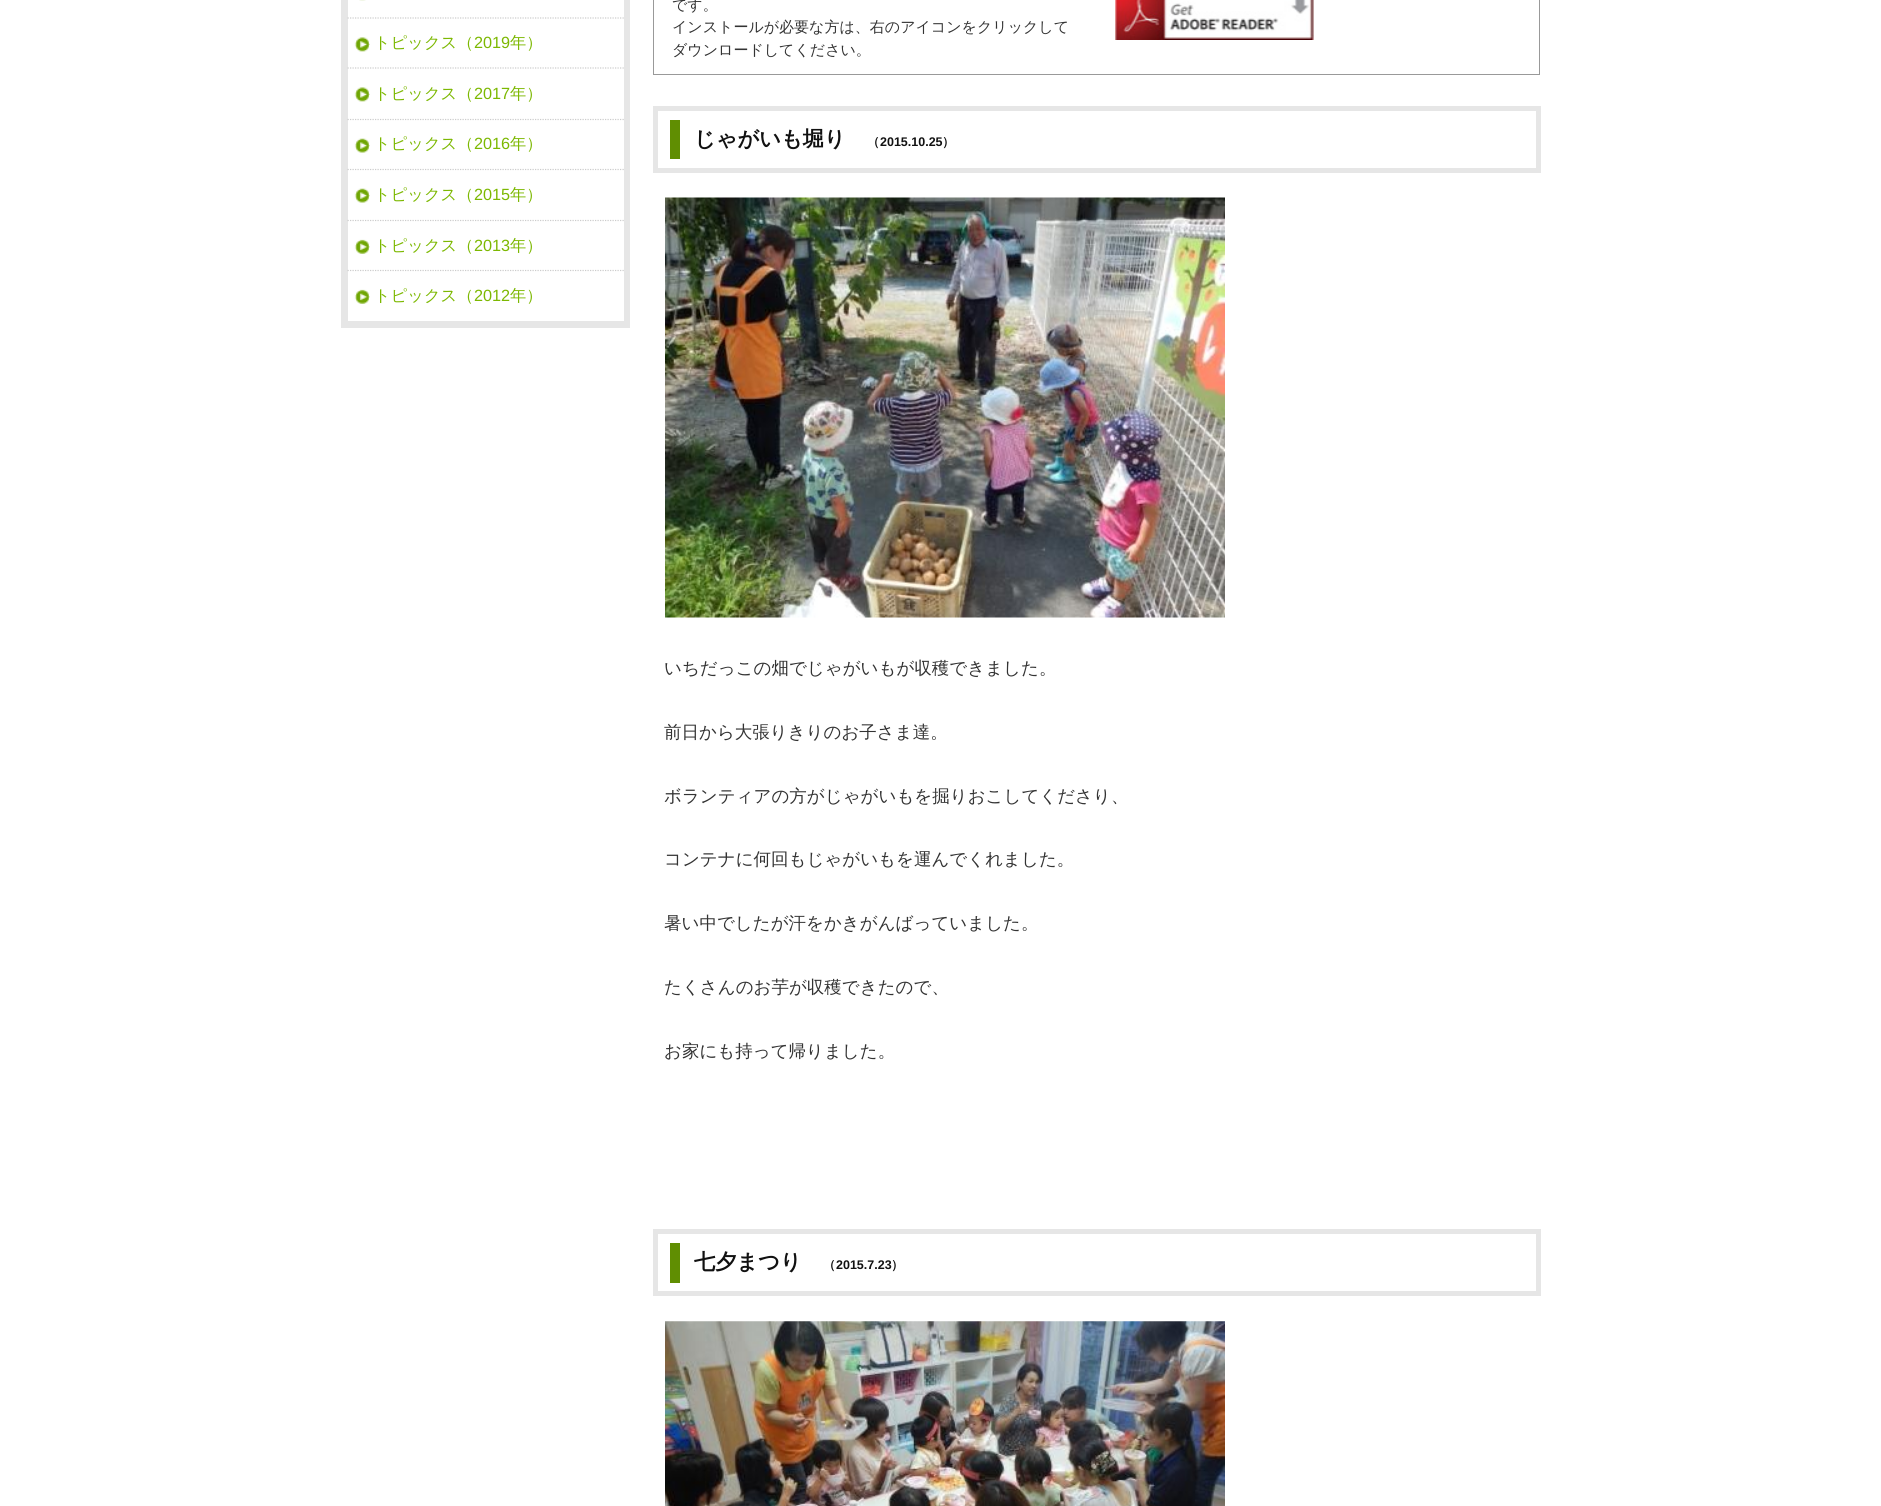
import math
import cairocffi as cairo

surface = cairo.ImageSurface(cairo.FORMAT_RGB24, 1881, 1506)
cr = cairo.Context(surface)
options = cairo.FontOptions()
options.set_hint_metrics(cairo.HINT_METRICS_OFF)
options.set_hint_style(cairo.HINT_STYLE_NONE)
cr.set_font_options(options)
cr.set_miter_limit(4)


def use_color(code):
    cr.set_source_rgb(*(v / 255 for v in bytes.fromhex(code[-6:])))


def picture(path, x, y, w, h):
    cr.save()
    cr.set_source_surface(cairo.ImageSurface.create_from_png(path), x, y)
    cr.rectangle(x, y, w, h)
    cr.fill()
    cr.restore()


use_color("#ffffff")
cr.paint()
use_color("#e6e6e6")
cr.rectangle(341, 0, 289, 328)
cr.fill()
use_color("#ffffff")
cr.rectangle(348, 0, 276, 321)
cr.fill()
picture("img1.png", 359, 0, 7, 1)
cr.new_path()
cr.move_to(347.5, 18)
cr.line_to(624, 18)
use_color("#cccccc")
cr.set_line_width(1.2)
cr.set_dash([1.25, 1.25])
cr.stroke()
picture("img2.png", 354, 37, 16, 15)
cr.new_path()
cr.move_to(347.5, 68)
cr.line_to(624, 68)
cr.stroke()
cr.select_font_face("WenQuanYi Zen Hei Medium")
cr.set_font_size(16.25)
use_color("#7cb801")
cr.move_to(374, 48)
cr.show_text("トピックス（")
cr.select_font_face("Liberation Sans")
cr.move_to(474, 48)
cr.show_text("2019")
cr.select_font_face("WenQuanYi Zen Hei Medium")
cr.move_to(510, 48)
cr.show_text("年）")
picture("img2.png", 354, 87, 16, 15)
cr.new_path()
cr.move_to(347.5, 119.5)
cr.line_to(624, 119.5)
use_color("#cccccc")
cr.stroke()
use_color("#7cb801")
cr.move_to(374, 99)
cr.show_text("トピックス（")
cr.select_font_face("Liberation Sans")
cr.move_to(474, 99)
cr.show_text("2017")
cr.select_font_face("WenQuanYi Zen Hei Medium")
cr.move_to(510, 99)
cr.show_text("年）")
picture("img3.png", 354, 138, 16, 15)
cr.new_path()
cr.move_to(347.5, 169.5)
cr.line_to(624, 169.5)
use_color("#cccccc")
cr.stroke()
use_color("#7cb801")
cr.move_to(374, 149)
cr.show_text("トピックス（")
cr.select_font_face("Liberation Sans")
cr.move_to(474, 149)
cr.show_text("2016")
cr.select_font_face("WenQuanYi Zen Hei Medium")
cr.move_to(510, 149)
cr.show_text("年）")
picture("img3.png", 354, 188, 16, 15)
cr.new_path()
cr.move_to(347.5, 220.5)
cr.line_to(624, 220.5)
use_color("#cccccc")
cr.stroke()
use_color("#7cb801")
cr.move_to(374, 200)
cr.show_text("トピックス（")
cr.select_font_face("Liberation Sans")
cr.move_to(474, 200)
cr.show_text("2015")
cr.select_font_face("WenQuanYi Zen Hei Medium")
cr.move_to(510, 200)
cr.show_text("年）")
picture("img4.png", 354, 239, 16, 15)
cr.new_path()
cr.move_to(347.5, 270.5)
cr.line_to(624, 270.5)
use_color("#cccccc")
cr.stroke()
use_color("#7cb801")
cr.move_to(374, 251)
cr.show_text("トピックス（")
cr.select_font_face("Liberation Sans")
cr.move_to(474, 251)
cr.show_text("2013")
cr.select_font_face("WenQuanYi Zen Hei Medium")
cr.move_to(510, 251)
cr.show_text("年）")
picture("img4.png", 354, 289, 16, 15)
cr.move_to(374, 301)
cr.show_text("トピックス（")
cr.select_font_face("Liberation Sans")
cr.move_to(474, 301)
cr.show_text("2012")
cr.select_font_face("WenQuanYi Zen Hei Medium")
cr.move_to(510, 301)
cr.show_text("年）")
use_color("#999999")
cr.rectangle(1539, 0, 1, 75)
cr.fill()
cr.rectangle(653, 74, 887, 1)
cr.fill()
cr.rectangle(653, 0, 1, 75)
cr.fill()
cr.set_font_size(15)
use_color("#333333")
cr.move_to(672, 10)
cr.show_text("です。")
cr.move_to(672, 32)
cr.show_text("インストールが必要な方は、右のアイコンをクリックして")
cr.move_to(672, 55)
cr.show_text("ダウンロードしてください。")
picture("img5.png", 1115, 0, 199, 40)
cr.rectangle(655.5, 108.5, 883, 62)
use_color("#e6e6e6")
cr.set_line_width(5)
cr.set_dash([])
cr.stroke()
use_color("#608e02")
cr.rectangle(670, 120, 10, 39)
cr.fill()
cr.select_font_face("WenQuanYi Zen Hei", cairo.FONT_SLANT_NORMAL, cairo.FONT_WEIGHT_BOLD)
cr.set_font_size(21.25)
use_color("#111111")
cr.move_to(694, 146)
cr.show_text("じゃがいも堀り")
cr.set_font_size(12.5)
cr.move_to(867, 146)
cr.show_text("（")
cr.select_font_face("Liberation Sans", cairo.FONT_SLANT_NORMAL, cairo.FONT_WEIGHT_BOLD)
cr.move_to(880, 146)
cr.show_text("2015.10.25")
cr.select_font_face("WenQuanYi Zen Hei", cairo.FONT_SLANT_NORMAL, cairo.FONT_WEIGHT_BOLD)
cr.move_to(942, 146)
cr.show_text("）")
picture("img6.png", 665, 197, 560, 421)
cr.select_font_face("WenQuanYi Zen Hei Medium")
cr.set_font_size(17.5)
use_color("#333333")
cr.move_to(664, 674)
cr.show_text("いちだっこの畑でじゃがいもが収穫できました。")
cr.move_to(664, 738)
cr.show_text("前日から大張りきりのお子さま達。")
cr.move_to(664, 802)
cr.show_text("ボランティアの方がじゃがいもを掘りおこしてくださり、")
cr.move_to(664, 865)
cr.show_text("コンテナに何回もじゃがいもを運んでくれました。")
cr.move_to(664, 929)
cr.show_text("暑い中でしたが汗をかきがんばっていました。")
cr.move_to(664, 993)
cr.show_text("たくさんのお芋が収穫できたので、")
cr.move_to(664, 1057)
cr.show_text("お家にも持って帰りました。")
cr.rectangle(655.5, 1231.5, 883, 62)
use_color("#e6e6e6")
cr.stroke()
use_color("#608e02")
cr.rectangle(670, 1243, 10, 40)
cr.fill()
cr.select_font_face("WenQuanYi Zen Hei", cairo.FONT_SLANT_NORMAL, cairo.FONT_WEIGHT_BOLD)
cr.set_font_size(21.25)
use_color("#111111")
cr.move_to(694, 1269)
cr.show_text("七夕まつり")
cr.set_font_size(12.5)
cr.move_to(823, 1269)
cr.show_text("（")
cr.select_font_face("Liberation Sans", cairo.FONT_SLANT_NORMAL, cairo.FONT_WEIGHT_BOLD)
cr.move_to(836, 1269)
cr.show_text("2015.7.23")
cr.select_font_face("WenQuanYi Zen Hei", cairo.FONT_SLANT_NORMAL, cairo.FONT_WEIGHT_BOLD)
cr.move_to(891, 1269)
cr.show_text("）")
picture("img7.png", 665, 1321, 560, 185)
surface.write_to_png("result.png")
